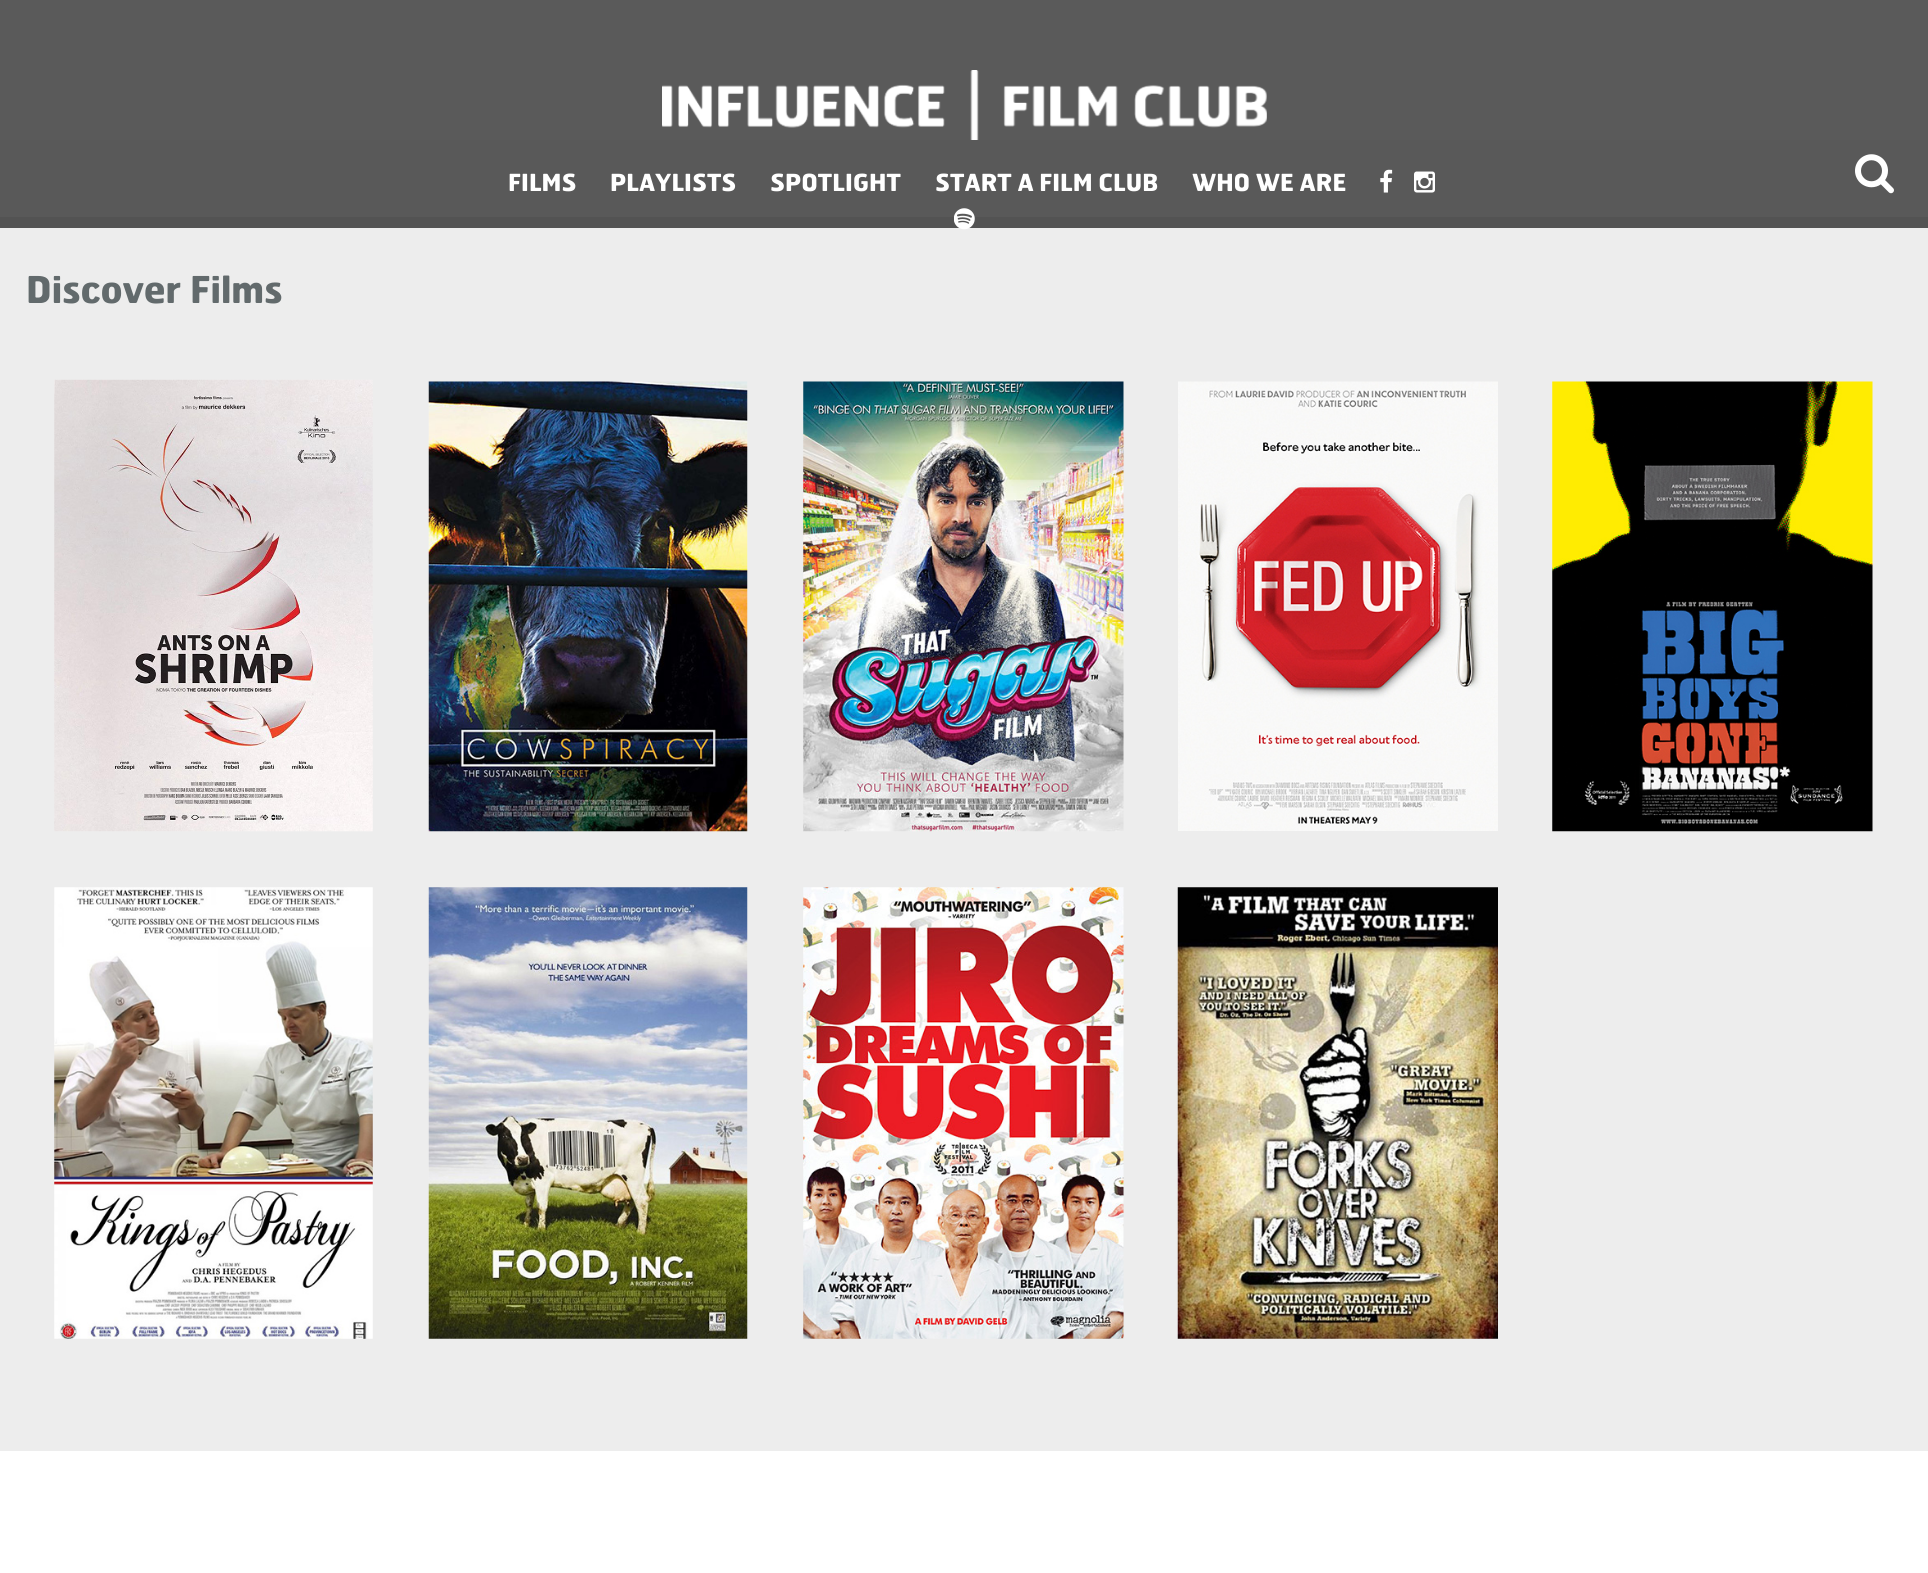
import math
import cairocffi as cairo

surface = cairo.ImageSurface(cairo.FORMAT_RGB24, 1928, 1573)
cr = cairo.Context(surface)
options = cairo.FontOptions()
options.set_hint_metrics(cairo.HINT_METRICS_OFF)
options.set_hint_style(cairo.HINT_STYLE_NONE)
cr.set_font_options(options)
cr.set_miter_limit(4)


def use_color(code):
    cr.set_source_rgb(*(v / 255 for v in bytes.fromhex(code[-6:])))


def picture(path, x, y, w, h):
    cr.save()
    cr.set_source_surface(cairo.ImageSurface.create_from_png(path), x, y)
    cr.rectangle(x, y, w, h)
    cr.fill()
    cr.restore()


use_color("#ffffff")
cr.paint()
use_color("#595959")
cr.rectangle(0, 140, 1928, 77)
cr.fill()
use_color("#5a5a5a")
cr.rectangle(0, 0, 1928, 140)
cr.fill()
picture("img1.png", 662, 70, 605, 70)
cr.select_font_face("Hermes", cairo.FONT_SLANT_NORMAL, cairo.FONT_WEIGHT_BOLD)
cr.set_font_size(24.5)
use_color("#ffffff")
cr.move_to(508, 191)
cr.show_text("FILMS")
cr.move_to(610, 191)
cr.show_text("PLAYLISTS")
cr.move_to(770, 191)
cr.show_text("SPOTLIGHT")
cr.move_to(935, 191)
cr.show_text("START A FILM CLUB")
cr.move_to(1192, 191)
cr.show_text("WHO WE ARE")
picture("img2.png", 1380, 169, 13, 24)
picture("img3.png", 1414, 171, 21, 22)
use_color("#ededed")
cr.rectangle(0, 228, 1928, 1223)
cr.fill()
use_color("#535353")
cr.rectangle(0, 217, 1928, 11)
cr.fill()
picture("img4.png", 954, 208, 21, 22)
picture("img5.png", 1855, 154, 39, 40)
cr.set_font_size(38.5)
use_color("#626a6c")
cr.move_to(26, 303)
cr.show_text("Discover Films")
picture("img6.png", 54, 379, 319, 453)
picture("img7.png", 428, 381, 320, 451)
picture("img8.png", 803, 381, 321, 451)
picture("img9.png", 1178, 381, 320, 450)
picture("img10.png", 1552, 381, 321, 451)
picture("img11.png", 54, 887, 319, 452)
picture("img12.png", 428, 887, 320, 452)
picture("img13.png", 803, 887, 321, 452)
picture("img14.png", 1177, 887, 321, 452)
surface.write_to_png("result.png")
